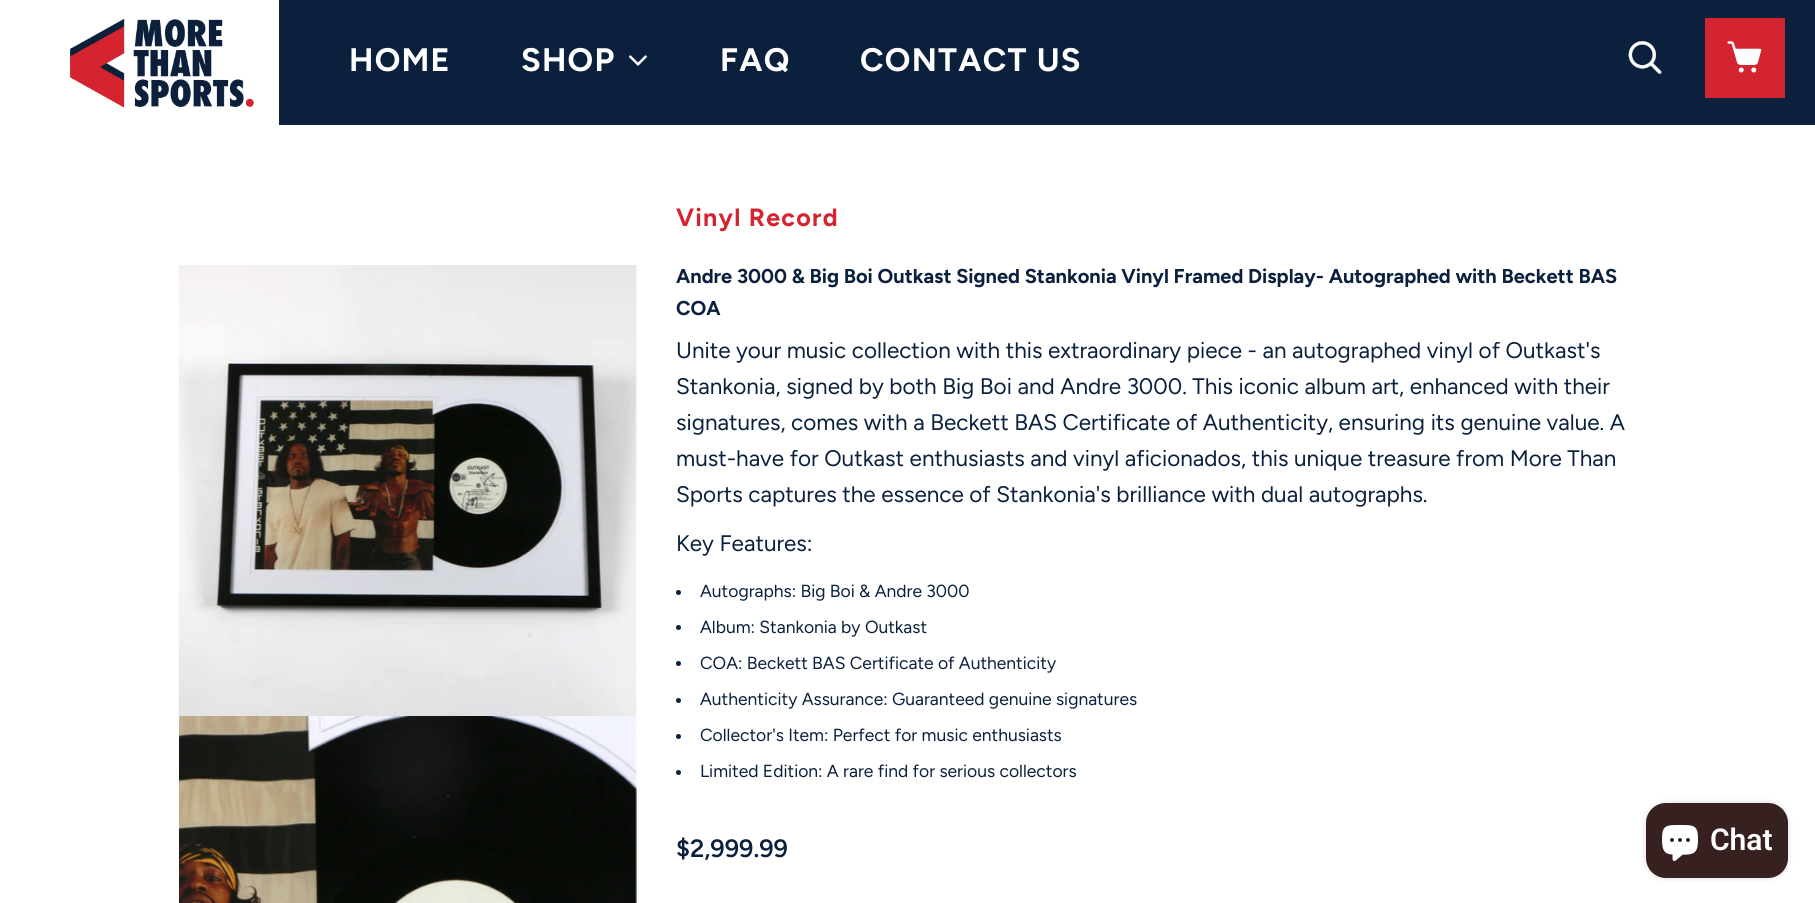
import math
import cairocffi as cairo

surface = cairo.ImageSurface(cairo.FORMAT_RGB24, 1815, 903)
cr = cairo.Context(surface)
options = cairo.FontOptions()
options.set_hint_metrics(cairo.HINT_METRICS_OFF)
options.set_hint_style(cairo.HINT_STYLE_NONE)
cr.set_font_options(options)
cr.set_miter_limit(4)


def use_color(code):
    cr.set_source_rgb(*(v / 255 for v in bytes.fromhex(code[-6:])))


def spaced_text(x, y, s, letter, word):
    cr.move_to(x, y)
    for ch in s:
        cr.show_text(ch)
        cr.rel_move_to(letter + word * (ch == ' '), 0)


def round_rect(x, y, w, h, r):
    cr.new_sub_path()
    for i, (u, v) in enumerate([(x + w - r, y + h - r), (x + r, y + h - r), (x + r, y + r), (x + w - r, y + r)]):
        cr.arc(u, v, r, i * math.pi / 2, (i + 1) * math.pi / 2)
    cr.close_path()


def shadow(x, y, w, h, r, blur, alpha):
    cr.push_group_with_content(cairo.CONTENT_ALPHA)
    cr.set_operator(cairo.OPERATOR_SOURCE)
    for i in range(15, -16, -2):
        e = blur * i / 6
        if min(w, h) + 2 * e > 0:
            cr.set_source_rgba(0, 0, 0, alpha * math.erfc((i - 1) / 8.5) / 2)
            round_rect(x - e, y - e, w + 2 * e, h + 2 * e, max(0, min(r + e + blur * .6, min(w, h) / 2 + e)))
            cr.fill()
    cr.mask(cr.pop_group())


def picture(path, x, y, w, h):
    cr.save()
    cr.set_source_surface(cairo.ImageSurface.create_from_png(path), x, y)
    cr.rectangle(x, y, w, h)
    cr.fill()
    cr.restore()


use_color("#ffffff")
cr.paint()
use_color("#0a203c")
cr.rectangle(279, 0, 1536, 125)
cr.fill()
picture("img1.png", 70, 18, 184, 90)
cr.select_font_face("Figtree", cairo.FONT_SLANT_NORMAL, cairo.FONT_WEIGHT_BOLD)
cr.set_font_size(32.5)
use_color("#ffffff")
spaced_text(349, 71, "HOME", 1.25, 0)
spaced_text(521, 71, "SHOP", 1.25, 0)
picture("img2.png", 628, 55, 19, 11)
spaced_text(720, 71, "FAQ", 1.25, 0)
spaced_text(860, 71, "CONTACT US", 1.25, 0)
picture("img3.png", 1628, 41, 34, 33)
picture("img4.png", 1705, 18, 80, 80)
picture("img5.png", 178, 265, 459, 452)
picture("img6.png", 179, 716, 458, 187)
cr.set_font_size(25)
use_color("#d3242f")
spaced_text(676, 226, "Vinyl Record", 1.25, 0)
cr.set_font_size(20)
use_color("#0a203c")
cr.move_to(676, 283)
cr.show_text("Andre 3000 & Big Boi Outkast Signed Stankonia Vinyl Framed Display- Autographed with Beckett BAS")
cr.move_to(676, 315)
cr.show_text("COA")
cr.select_font_face("Figtree")
cr.set_font_size(22.5)
cr.move_to(676, 358)
cr.show_text("Unite your music collection with this extraordinary piece - an autographed vinyl of Outkast's")
cr.move_to(676, 394)
cr.show_text("Stankonia, signed by both Big Boi and Andre 3000. This iconic album art, enhanced with their")
cr.move_to(676, 430)
cr.show_text("signatures, comes with a Beckett BAS Certificate of Authenticity, ensuring its genuine value. A")
cr.move_to(676, 466)
cr.show_text("must-have for Outkast enthusiasts and vinyl aficionados, this unique treasure from More Than")
cr.move_to(676, 502)
cr.show_text("Sports captures the essence of Stankonia's brilliance with dual autographs.")
cr.move_to(676, 551)
cr.show_text("Key Features:")
cr.new_path()
cr.arc(678.5, 592.5, 2.5, 0, 2 * math.pi)
cr.fill()
cr.set_font_size(17.5)
cr.move_to(700, 597)
cr.show_text("Autographs: Big Boi & Andre 3000")
cr.new_path()
cr.arc(678.5, 627.5, 2.5, 0, 2 * math.pi)
cr.fill()
cr.move_to(700, 633)
cr.show_text("Album: Stankonia by Outkast")
cr.new_path()
cr.arc(678.5, 663.5, 2.5, 0, 2 * math.pi)
cr.fill()
cr.move_to(700, 669)
cr.show_text("COA: Beckett BAS Certificate of Authenticity")
cr.new_path()
cr.arc(678.5, 700.5, 2.5, 0, 2 * math.pi)
cr.fill()
cr.move_to(700, 705)
cr.show_text("Authenticity Assurance: Guaranteed genuine signatures")
cr.new_path()
cr.arc(678.5, 736.5, 2.5, 0, 2 * math.pi)
cr.fill()
cr.move_to(700, 741)
cr.show_text("Collector's Item: Perfect for music enthusiasts")
cr.new_path()
cr.arc(678.5, 772.5, 2.5, 0, 2 * math.pi)
cr.fill()
cr.move_to(700, 777)
cr.show_text("Limited Edition: A rare find for serious collectors")
cr.select_font_face("Figtree SemiBold")
cr.set_font_size(25)
cr.move_to(676, 857)
cr.show_text("$2,999.99")
use_color("#000000")
shadow(1646, 803, 142, 75, 20, 3, 0.15)
use_color("#362020")
round_rect(1646, 803, 142, 75, 20)
cr.fill()
picture("img7.png", 1662, 825, 36, 36)
cr.select_font_face("Roboto SemiBold")
cr.set_font_size(30)
use_color("#ffffff")
cr.move_to(1710, 850)
cr.show_text("Chat")
surface.write_to_png("result.png")
